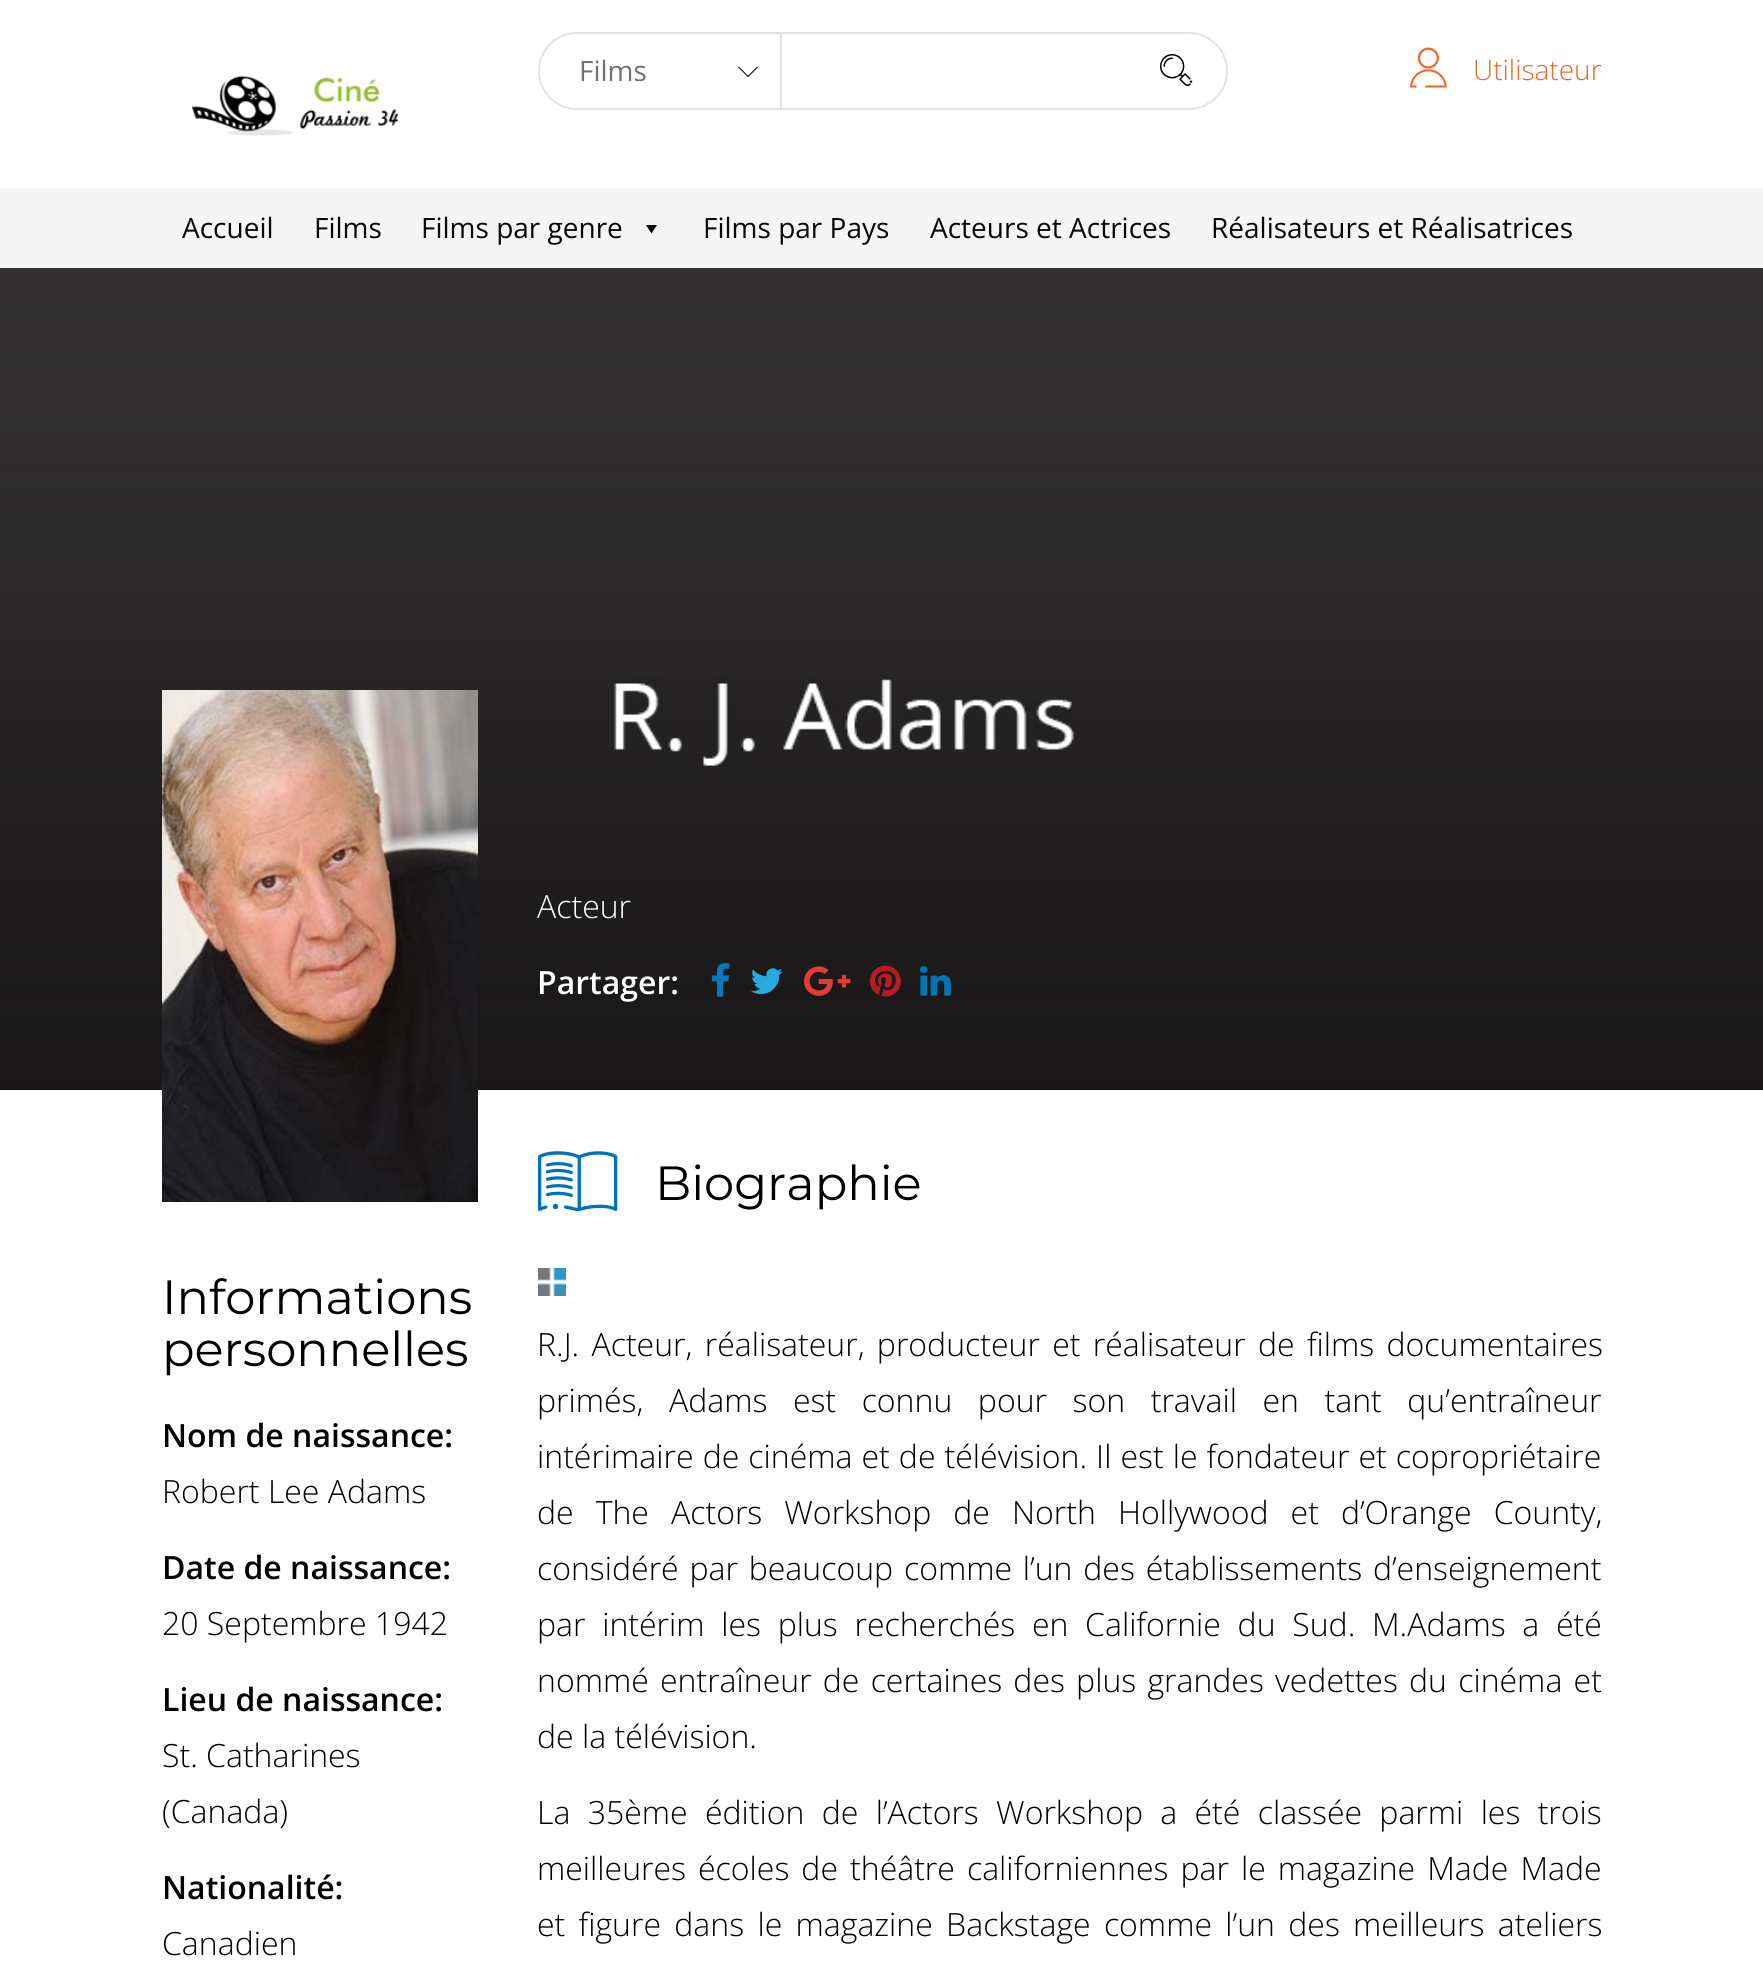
import math
import cairocffi as cairo

surface = cairo.ImageSurface(cairo.FORMAT_RGB24, 1763, 1973)
cr = cairo.Context(surface)
options = cairo.FontOptions()
options.set_hint_metrics(cairo.HINT_METRICS_OFF)
options.set_hint_style(cairo.HINT_STYLE_NONE)
cr.set_font_options(options)
cr.set_miter_limit(4)


def use_color(code):
    cr.set_source_rgb(*(v / 255 for v in bytes.fromhex(code[-6:])))


def spaced_text(x, y, s, letter, word):
    cr.move_to(x, y)
    for ch in s:
        cr.show_text(ch)
        cr.rel_move_to(letter + word * (ch == ' '), 0)


def round_rect(x, y, w, h, r):
    cr.new_sub_path()
    for i, (u, v) in enumerate([(x + w - r, y + h - r), (x + r, y + h - r), (x + r, y + r), (x + w - r, y + r)]):
        cr.arc(u, v, r, i * math.pi / 2, (i + 1) * math.pi / 2)
    cr.close_path()


def picture(path, x, y, w, h):
    cr.save()
    cr.set_source_surface(cairo.ImageSurface.create_from_png(path), x, y)
    cr.rectangle(x, y, w, h)
    cr.fill()
    cr.restore()


use_color("#ffffff")
cr.paint()
round_rect(539, 33, 688, 76, 38)
use_color("#e3e3e3")
cr.stroke()
cr.rectangle(780, 34, 2, 74)
cr.fill()
cr.select_font_face("Open Sans")
cr.set_font_size(28)
use_color("#727272")
cr.move_to(579, 81)
cr.show_text("Films")
picture("img1.png", 738, 66, 20, 11)
picture("img2.png", 1160, 54, 33, 32)
picture("img3.png", 1410, 47, 37, 41)
cr.select_font_face("Open Sans Light")
use_color("#f26522")
cr.move_to(1473, 80)
cr.show_text("Utilisateur")
picture("img4.png", 192, 75, 206, 61)
use_color("#f5f5f5")
cr.rectangle(0, 188, 1763, 80)
cr.fill()
cr.select_font_face("Open Sans")
use_color("#080808")
cr.move_to(182, 238)
cr.show_text("Accueil")
cr.move_to(314, 238)
cr.show_text("Films")
cr.move_to(421, 238)
cr.show_text("Films par genre")
cr.new_path()
cr.move_to(657, 225)
cr.line_to(651.5, 233.5)
cr.line_to(646, 225)
cr.close_path()
cr.fill()
cr.move_to(703, 238)
cr.show_text("Films par Pays")
cr.move_to(930, 238)
cr.show_text("Acteurs et Actrices")
cr.move_to(1211, 238)
cr.show_text("Réalisateurs et Réalisatrices")
picture("img5.png", 0, 268, 1763, 822)
cr.select_font_face("Open Sans Light")
cr.set_font_size(32)
use_color("#ffffff")
cr.move_to(537, 918)
cr.show_text("Acteur")
cr.select_font_face("Open Sans SemiBold")
cr.move_to(537, 994)
cr.show_text("Partager:")
picture("img6.png", 711, 963, 19, 34)
picture("img7.png", 751, 968, 32, 26)
picture("img8.png", 804, 966, 47, 30)
picture("img9.png", 870, 965, 31, 32)
picture("img10.png", 920, 966, 31, 30)
picture("img11.png", 162, 690, 316, 512)
cr.select_font_face("Montserrat")
cr.set_font_size(48)
use_color("#000000")
cr.move_to(162, 1314)
cr.show_text("Informations")
cr.move_to(162, 1366)
cr.show_text("personnelles")
cr.select_font_face("Open Sans SemiBold")
cr.set_font_size(32)
cr.move_to(162, 1447)
cr.show_text("Nom de naissance:")
cr.select_font_face("Open Sans Light")
cr.move_to(162, 1503)
cr.show_text("Robert Lee Adams")
cr.select_font_face("Open Sans SemiBold")
cr.move_to(162, 1579)
cr.show_text("Date de naissance:")
cr.select_font_face("Open Sans Light")
cr.move_to(162, 1635)
cr.show_text("20 Septembre 1942")
cr.select_font_face("Open Sans SemiBold")
cr.move_to(162, 1711)
cr.show_text("Lieu de naissance:")
cr.select_font_face("Open Sans Light")
cr.move_to(162, 1767)
cr.show_text("St. Catharines")
cr.move_to(162, 1823)
cr.show_text("(Canada)")
cr.select_font_face("Open Sans SemiBold")
cr.move_to(162, 1899)
cr.show_text("Nationalité:")
cr.select_font_face("Open Sans Light")
cr.move_to(162, 1955)
cr.show_text("Canadien")
picture("img12.png", 538, 1151, 80, 61)
cr.select_font_face("Montserrat")
cr.set_font_size(48)
cr.move_to(655, 1200)
cr.show_text("Biographie")
picture("img13.png", 538, 1268, 28, 28)
cr.select_font_face("Open Sans Light")
cr.set_font_size(32)
spaced_text(537, 1356, "R.J. Acteur, réalisateur, producteur et réalisateur de films documentaires", 0, 4)
spaced_text(537, 1412, "primés, Adams est connu pour son travail en tant qu’entraîneur", 0, 17.25)
spaced_text(537, 1468, "intérimaire de cinéma et de télévision. Il est le fondateur et copropriétaire", 0, 0.75)
spaced_text(537, 1524, "de The Actors Workshop de North Hollywood et d’Orange County,", 0, 13.75)
spaced_text(537, 1580, "considéré par beaucoup comme l’un des établissements d’enseignement", 0, 2.5)
spaced_text(537, 1636, "par intérim les plus recherchés en Californie du Sud. M.Adams a été", 0, 8.4)
spaced_text(537, 1692, "nommé entraîneur de certaines des plus grandes vedettes du cinéma et", 0, 2.9)
cr.move_to(537, 1748)
cr.show_text("de la télévision.")
spaced_text(537, 1824, "La 35ème édition de l’Actors Workshop a été classée parmi les trois", 0, 9)
spaced_text(537, 1880, "meilleures écoles de théâtre californiennes par le magazine Made Made", 0, 3.75)
spaced_text(537, 1936, "et figure dans le magazine Backstage comme l’un des meilleurs ateliers", 0, 5)
surface.write_to_png("result.png")
